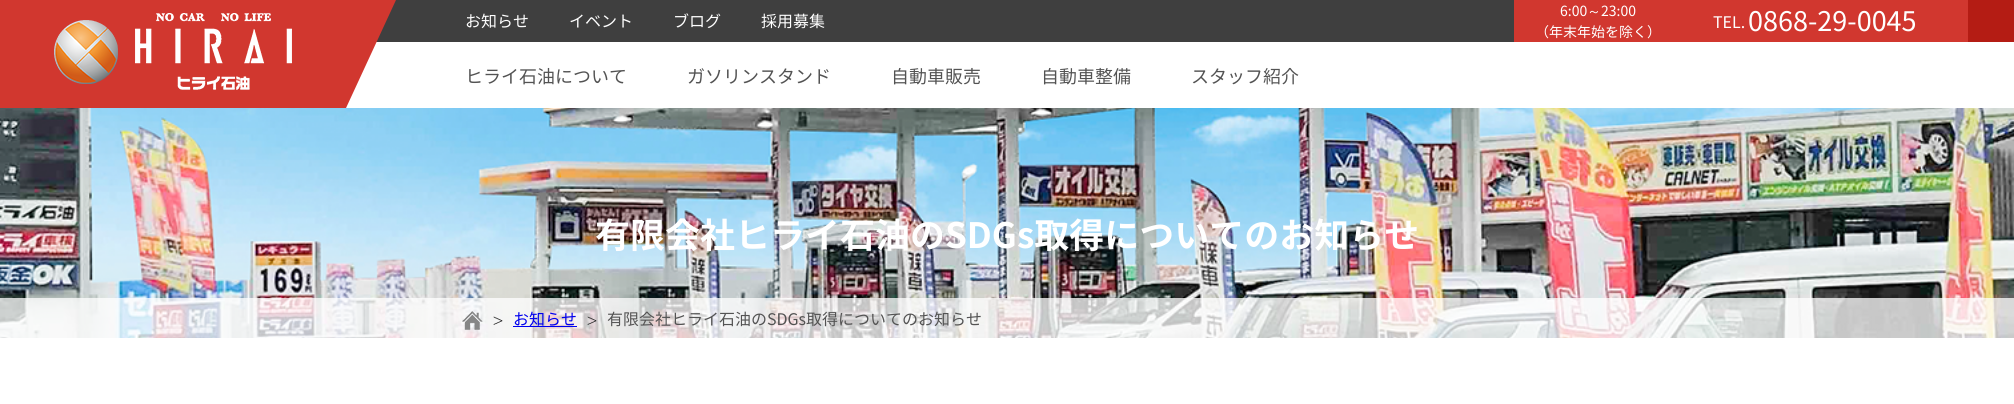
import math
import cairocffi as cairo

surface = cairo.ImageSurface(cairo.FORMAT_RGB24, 2014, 404)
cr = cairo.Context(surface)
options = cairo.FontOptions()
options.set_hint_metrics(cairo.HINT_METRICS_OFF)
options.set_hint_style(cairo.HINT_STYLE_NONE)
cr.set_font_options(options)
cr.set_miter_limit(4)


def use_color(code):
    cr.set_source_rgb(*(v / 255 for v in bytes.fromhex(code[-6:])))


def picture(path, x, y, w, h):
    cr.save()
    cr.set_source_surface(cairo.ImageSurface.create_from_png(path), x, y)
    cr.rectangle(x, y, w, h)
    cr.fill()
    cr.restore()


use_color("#ffffff")
cr.paint()
use_color("#d1372f")
cr.rectangle(0, 0, 345, 108)
cr.fill()
picture("img1.png", 54, 13, 238, 77)
use_color("#3f3f3f")
cr.rectangle(376, 0, 1138, 42)
cr.fill()
picture("img2.png", 345, 0, 51, 108)
cr.select_font_face("Noto Sans JP")
cr.set_font_size(16)
use_color("#ffffff")
cr.move_to(465, 27)
cr.show_text("お知らせ")
cr.move_to(569, 27)
cr.show_text("イベント")
cr.move_to(673, 27)
cr.show_text("ブログ")
cr.move_to(761, 27)
cr.show_text("採用募集")
use_color("#d1372f")
cr.rectangle(1514, 0, 454, 42)
cr.fill()
cr.set_font_size(14)
use_color("#ffffff")
cr.move_to(1560, 16)
cr.show_text("6:00")
cr.select_font_face("WenQuanYi Zen Hei Medium")
cr.move_to(1587, 16)
cr.show_text("～")
cr.select_font_face("Noto Sans JP")
cr.move_to(1601, 16)
cr.show_text("23:00")
cr.move_to(1535, 37)
cr.show_text("（年末年始を除く）")
cr.set_font_size(16)
cr.move_to(1713, 28)
cr.show_text("TEL.")
cr.set_font_size(27)
cr.move_to(1748, 31)
cr.show_text("0868-29-0045")
use_color("#b41c14")
cr.rectangle(1968, 0, 46, 42)
cr.fill()
cr.set_font_size(18)
use_color("#535353")
cr.move_to(465, 83)
cr.show_text("ヒライ石油について")
cr.move_to(687, 83)
cr.show_text("ガソリンスタンド")
cr.move_to(891, 83)
cr.show_text("自動車販売")
cr.move_to(1041, 83)
cr.show_text("自動車整備")
cr.move_to(1191, 83)
cr.show_text("スタッフ紹介")
picture("img3.png", 0, 108, 2014, 230)
cr.select_font_face("Noto Sans JP", cairo.FONT_SLANT_NORMAL, cairo.FONT_WEIGHT_BOLD)
cr.set_font_size(35)
use_color("#ffffff")
cr.move_to(595, 248)
cr.show_text("有限会社ヒライ石油のSDGs取得についてのお知らせ")
cr.set_source_rgba(1, 1, 1, 0.76)
cr.rectangle(0, 298, 2014, 40)
cr.fill()
picture("img4.png", 462, 311, 21, 19)
picture("img5.png", 493, 316, 10, 9)
use_color("#0000ee")
cr.rectangle(513, 326, 64, 1)
cr.fill()
cr.select_font_face("Noto Sans JP")
cr.set_font_size(16)
cr.move_to(513, 325)
cr.show_text("お知らせ")
picture("img6.png", 587, 316, 10, 9)
use_color("#535353")
cr.move_to(607, 325)
cr.show_text("有限会社ヒライ石油のSDGs取得についてのお知らせ")
surface.write_to_png("result.png")
